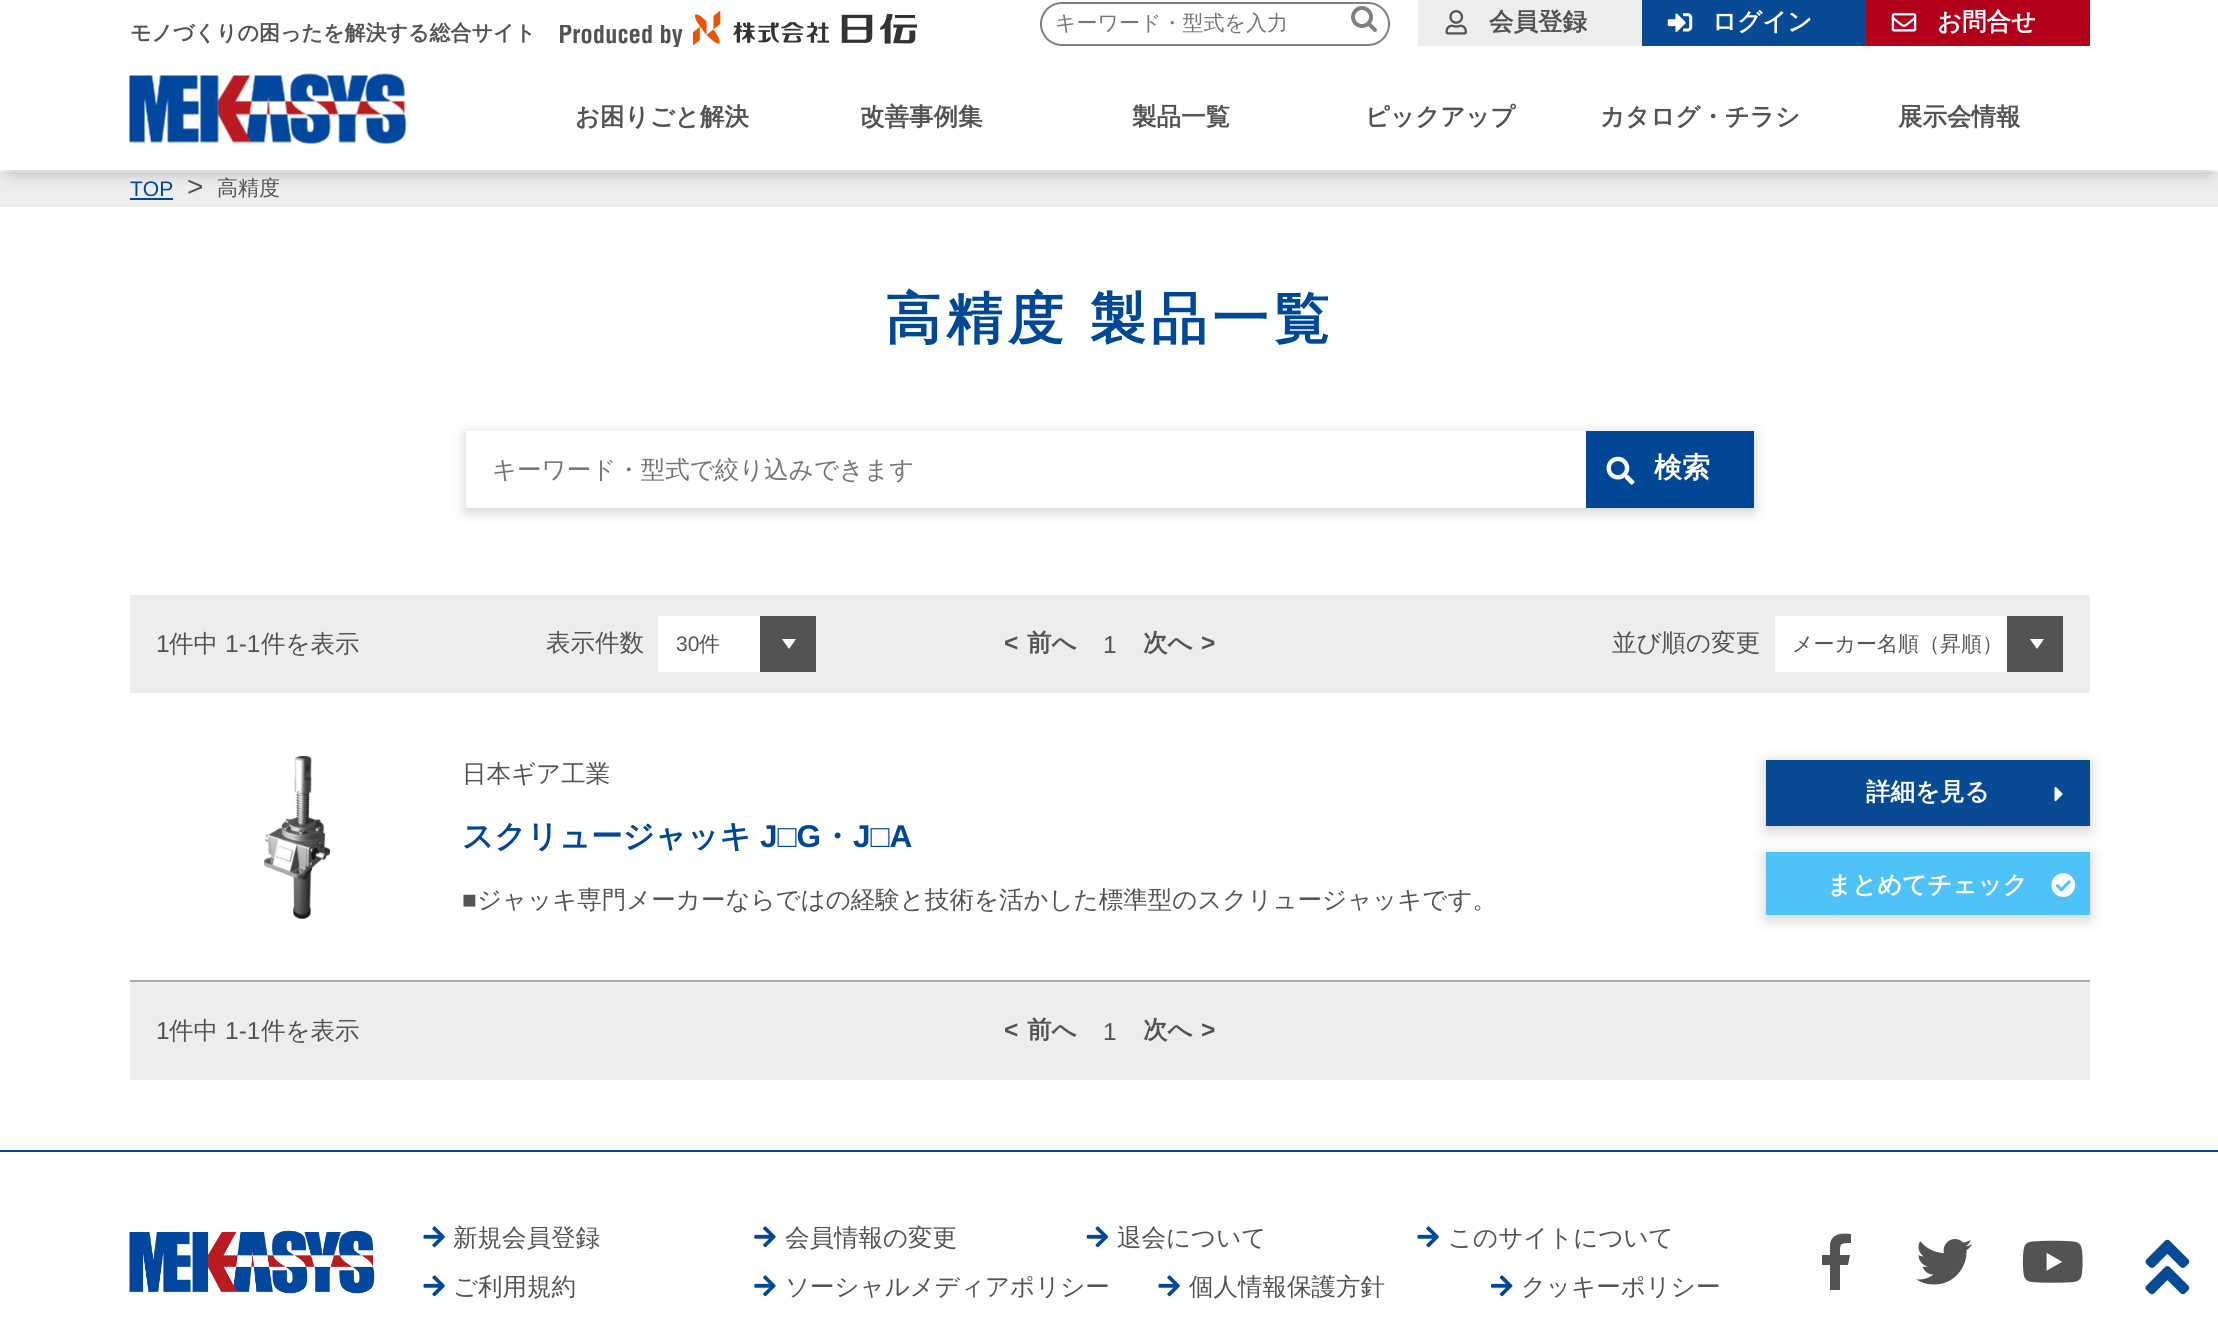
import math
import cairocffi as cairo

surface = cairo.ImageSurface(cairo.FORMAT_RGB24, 2218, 1319)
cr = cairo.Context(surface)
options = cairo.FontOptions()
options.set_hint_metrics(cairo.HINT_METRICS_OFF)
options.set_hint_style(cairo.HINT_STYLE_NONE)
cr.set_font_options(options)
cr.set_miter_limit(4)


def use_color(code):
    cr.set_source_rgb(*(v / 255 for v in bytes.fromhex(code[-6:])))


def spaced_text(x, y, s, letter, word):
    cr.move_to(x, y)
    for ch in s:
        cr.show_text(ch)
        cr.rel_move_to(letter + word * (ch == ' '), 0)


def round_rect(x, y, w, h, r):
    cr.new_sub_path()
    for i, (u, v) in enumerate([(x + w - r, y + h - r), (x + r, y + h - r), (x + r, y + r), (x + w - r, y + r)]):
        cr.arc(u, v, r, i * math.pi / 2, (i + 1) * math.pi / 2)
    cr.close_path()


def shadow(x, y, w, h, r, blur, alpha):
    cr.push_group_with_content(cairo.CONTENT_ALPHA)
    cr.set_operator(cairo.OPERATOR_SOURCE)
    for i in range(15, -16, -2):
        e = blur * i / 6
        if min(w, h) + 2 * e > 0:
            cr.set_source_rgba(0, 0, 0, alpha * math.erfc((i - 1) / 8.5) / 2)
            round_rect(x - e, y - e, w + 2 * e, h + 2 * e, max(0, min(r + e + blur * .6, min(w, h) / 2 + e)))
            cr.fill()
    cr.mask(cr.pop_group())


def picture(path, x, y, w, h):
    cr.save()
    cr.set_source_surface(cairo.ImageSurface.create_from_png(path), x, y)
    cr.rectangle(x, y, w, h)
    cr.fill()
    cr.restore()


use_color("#ffffff")
cr.paint()
use_color("#ededed")
cr.rectangle(0, 172, 2218, 35)
cr.fill()
use_color("#000000")
shadow(9, 18, 2201, 152, 0, 9, 0.3)
use_color("#ffffff")
cr.rectangle(0, 2, 2218, 168)
cr.fill()
cr.select_font_face("WenQuanYi Zen Hei", cairo.FONT_SLANT_NORMAL, cairo.FONT_WEIGHT_BOLD)
cr.set_font_size(21)
use_color("#535353")
cr.move_to(130, 40)
cr.show_text("モノづくりの困ったを解決する総合サイト")
picture("img1.png", 560, 25, 123, 22)
picture("img2.png", 693, 11, 224, 35)
picture("img3.png", 129, 73, 278, 71)
round_rect(1041, 3, 348, 42, 21)
use_color("#808080")
cr.stroke()
cr.select_font_face("WenQuanYi Zen Hei Medium")
use_color("#757575")
cr.move_to(1055, 30)
cr.show_text("キーワード・型式を入力")
picture("img4.png", 1351, 6, 26, 26)
use_color("#ededed")
cr.rectangle(1418, 0, 224, 46)
cr.fill()
picture("img5.png", 1445, 10, 22, 25)
cr.select_font_face("WenQuanYi Zen Hei", cairo.FONT_SLANT_NORMAL, cairo.FONT_WEIGHT_BOLD)
cr.set_font_size(24.5)
use_color("#535353")
cr.move_to(1489, 30)
cr.show_text("会員登録")
use_color("#084a94")
cr.rectangle(1642, 0, 224, 46)
cr.fill()
picture("img6.png", 1667, 13, 26, 19)
use_color("#ffffff")
cr.move_to(1712, 30)
cr.show_text("ログイン")
use_color("#b2001b")
cr.rectangle(1866, 0, 224, 46)
cr.fill()
picture("img7.png", 1891, 13, 26, 19)
use_color("#ffffff")
cr.move_to(1937, 30)
cr.show_text("お問合せ")
use_color("#535353")
cr.move_to(575, 125)
cr.show_text("お困りごと解決")
cr.move_to(860, 125)
cr.show_text("改善事例集")
cr.move_to(1132, 125)
cr.show_text("製品一覧")
cr.move_to(1365, 125)
cr.show_text("ピックアップ")
cr.move_to(1600, 125)
cr.show_text("カタログ・チラシ")
cr.move_to(1898, 125)
cr.show_text("展示会情報")
cr.select_font_face("Liberation Sans")
cr.set_font_size(21)
use_color("#004896")
cr.move_to(130, 196)
cr.show_text("TOP")
cr.rectangle(130, 198, 43, 2)
cr.fill()
cr.set_font_size(28)
use_color("#535353")
cr.move_to(187, 196)
cr.show_text(">")
cr.select_font_face("WenQuanYi Zen Hei Medium")
cr.set_font_size(21)
cr.move_to(217, 195)
cr.show_text("高精度")
cr.select_font_face("WenQuanYi Zen Hei", cairo.FONT_SLANT_NORMAL, cairo.FONT_WEIGHT_BOLD)
cr.set_font_size(56)
use_color("#004896")
spaced_text(885, 338, "高精度 製品一覧", 5.25, -1)
use_color("#000000")
shadow(466, 434, 1288, 77, 0, 7, 0.2)
use_color("#ffffff")
cr.rectangle(466, 431, 1120, 77)
cr.fill()
cr.select_font_face("WenQuanYi Zen Hei Medium")
cr.set_font_size(24.5)
use_color("#757575")
cr.move_to(492, 478)
cr.show_text("キーワード・型式で絞り込みできます")
use_color("#004896")
cr.rectangle(1586, 431, 168, 77)
cr.fill()
picture("img8.png", 1606, 456, 29, 29)
cr.select_font_face("WenQuanYi Zen Hei", cairo.FONT_SLANT_NORMAL, cairo.FONT_WEIGHT_BOLD)
cr.set_font_size(28)
use_color("#ffffff")
cr.move_to(1654, 477)
cr.show_text("検索")
use_color("#ededed")
cr.rectangle(130, 595, 1960, 98)
cr.fill()
cr.select_font_face("Liberation Sans")
cr.set_font_size(24.5)
use_color("#535353")
cr.move_to(156, 652)
cr.show_text("1")
cr.select_font_face("WenQuanYi Zen Hei Medium")
cr.move_to(169, 652)
cr.show_text("件中")
cr.select_font_face("Liberation Sans")
cr.move_to(225, 652)
cr.show_text("1-1")
cr.select_font_face("WenQuanYi Zen Hei Medium")
cr.move_to(261, 652)
cr.show_text("件を表示")
cr.move_to(546, 651)
cr.show_text("表示件数")
use_color("#ffffff")
cr.rectangle(658, 616, 102, 56)
cr.fill()
cr.select_font_face("Liberation Sans")
cr.set_font_size(21)
use_color("#535353")
cr.move_to(676, 651)
cr.show_text("30")
cr.select_font_face("WenQuanYi Zen Hei Medium")
cr.move_to(699, 651)
cr.show_text("件")
cr.rectangle(760, 616, 56, 56)
cr.fill()
use_color("#ffffff")
cr.new_path()
cr.move_to(782, 639)
cr.line_to(796, 639)
cr.line_to(789, 649)
cr.close_path()
cr.fill()
cr.select_font_face("Liberation Sans", cairo.FONT_SLANT_NORMAL, cairo.FONT_WEIGHT_BOLD)
cr.set_font_size(24.5)
use_color("#535353")
cr.move_to(1004, 651)
cr.show_text("<")
cr.select_font_face("WenQuanYi Zen Hei", cairo.FONT_SLANT_NORMAL, cairo.FONT_WEIGHT_BOLD)
cr.move_to(1027, 651)
cr.show_text("前へ")
cr.select_font_face("Liberation Sans")
cr.move_to(1103, 653)
cr.show_text("1")
cr.select_font_face("WenQuanYi Zen Hei", cairo.FONT_SLANT_NORMAL, cairo.FONT_WEIGHT_BOLD)
cr.move_to(1143, 651)
cr.show_text("次へ")
cr.select_font_face("Liberation Sans", cairo.FONT_SLANT_NORMAL, cairo.FONT_WEIGHT_BOLD)
cr.move_to(1201, 651)
cr.show_text(">")
cr.select_font_face("WenQuanYi Zen Hei Medium")
cr.move_to(1612, 651)
cr.show_text("並び順の変更")
use_color("#ffffff")
cr.rectangle(1775, 616, 232, 56)
cr.fill()
cr.set_font_size(21)
use_color("#535353")
cr.move_to(1792, 651)
cr.show_text("メーカー名順（昇順）")
cr.rectangle(2007, 616, 56, 56)
cr.fill()
use_color("#ffffff")
cr.new_path()
cr.move_to(2030, 639)
cr.line_to(2044, 639)
cr.line_to(2037, 649)
cr.close_path()
cr.fill()
use_color("#a9a9a9")
cr.rectangle(130, 980, 1960, 2)
cr.fill()
picture("img9.png", 263, 756, 67, 163)
cr.set_font_size(24.5)
use_color("#535353")
cr.move_to(462, 782)
cr.show_text("日本ギア工業")
cr.select_font_face("WenQuanYi Zen Hei", cairo.FONT_SLANT_NORMAL, cairo.FONT_WEIGHT_BOLD)
cr.set_font_size(31.5)
use_color("#004896")
cr.move_to(462, 847)
cr.show_text("スクリュージャッキ")
cr.select_font_face("Liberation Sans", cairo.FONT_SLANT_NORMAL, cairo.FONT_WEIGHT_BOLD)
cr.move_to(760, 847)
cr.show_text("J□G")
cr.select_font_face("WenQuanYi Zen Hei", cairo.FONT_SLANT_NORMAL, cairo.FONT_WEIGHT_BOLD)
cr.move_to(821, 847)
cr.show_text("・")
cr.select_font_face("Liberation Sans", cairo.FONT_SLANT_NORMAL, cairo.FONT_WEIGHT_BOLD)
cr.move_to(853, 847)
cr.show_text("J□A")
cr.select_font_face("Liberation Sans")
cr.set_font_size(24.5)
use_color("#535353")
cr.move_to(462, 908)
cr.show_text("■")
cr.select_font_face("WenQuanYi Zen Hei Medium")
cr.move_to(477, 908)
cr.show_text("ジャッキ専門メーカーならではの経験と技術を活かした標準型のスクリュージャッキです。")
use_color("#000000")
shadow(1766, 763, 324, 67, 0, 7, 0.2)
use_color("#084a94")
cr.rectangle(1766, 760, 324, 66)
cr.fill()
cr.select_font_face("WenQuanYi Zen Hei", cairo.FONT_SLANT_NORMAL, cairo.FONT_WEIGHT_BOLD)
use_color("#ffffff")
cr.move_to(1866, 800)
cr.show_text("詳細を見る")
picture("img10.png", 2054, 787, 9, 15)
use_color("#000000")
shadow(1766, 856, 324, 63, 0, 7, 0.2)
use_color("#4fc3f7")
cr.rectangle(1766, 852, 324, 63)
cr.fill()
use_color("#ffffff")
cr.move_to(1827, 893)
cr.show_text("まとめてチェック")
picture("img11.png", 2051, 873, 25, 24)
use_color("#ededed")
cr.rectangle(130, 982, 1960, 98)
cr.fill()
cr.select_font_face("Liberation Sans")
use_color("#535353")
cr.move_to(156, 1039)
cr.show_text("1")
cr.select_font_face("WenQuanYi Zen Hei Medium")
cr.move_to(169, 1039)
cr.show_text("件中")
cr.select_font_face("Liberation Sans")
cr.move_to(225, 1039)
cr.show_text("1-1")
cr.select_font_face("WenQuanYi Zen Hei Medium")
cr.move_to(261, 1039)
cr.show_text("件を表示")
cr.select_font_face("Liberation Sans", cairo.FONT_SLANT_NORMAL, cairo.FONT_WEIGHT_BOLD)
cr.move_to(1004, 1038)
cr.show_text("<")
cr.select_font_face("WenQuanYi Zen Hei", cairo.FONT_SLANT_NORMAL, cairo.FONT_WEIGHT_BOLD)
cr.move_to(1027, 1038)
cr.show_text("前へ")
cr.select_font_face("Liberation Sans")
cr.move_to(1103, 1040)
cr.show_text("1")
cr.select_font_face("WenQuanYi Zen Hei", cairo.FONT_SLANT_NORMAL, cairo.FONT_WEIGHT_BOLD)
cr.move_to(1143, 1038)
cr.show_text("次へ")
cr.select_font_face("Liberation Sans", cairo.FONT_SLANT_NORMAL, cairo.FONT_WEIGHT_BOLD)
cr.move_to(1201, 1038)
cr.show_text(">")
use_color("#004896")
cr.rectangle(0, 1150, 2218, 2)
cr.fill()
picture("img12.png", 129, 1230, 246, 64)
picture("img13.png", 423, 1226, 22, 22)
cr.select_font_face("WenQuanYi Zen Hei Medium")
use_color("#535353")
cr.move_to(453, 1246)
cr.show_text("新規会員登録")
picture("img14.png", 754, 1226, 22, 22)
cr.move_to(785, 1246)
cr.show_text("会員情報の変更")
picture("img15.png", 1086, 1226, 23, 22)
cr.move_to(1117, 1246)
cr.show_text("退会について")
picture("img13.png", 1417, 1226, 22, 22)
cr.move_to(1448, 1246)
cr.show_text("このサイトについて")
picture("img13.png", 423, 1275, 22, 22)
cr.move_to(453, 1295)
cr.show_text("ご利用規約")
picture("img14.png", 754, 1275, 22, 22)
cr.move_to(785, 1295)
cr.show_text("ソーシャルメディアポリシー")
picture("img13.png", 1158, 1275, 22, 22)
cr.move_to(1189, 1295)
cr.show_text("個人情報保護方針")
picture("img16.png", 1491, 1275, 22, 22)
cr.move_to(1521, 1295)
cr.show_text("クッキーポリシー")
cr.new_path()
cr.move_to(1830, 1290)
cr.line_to(1830, 1265)
cr.line_to(1822, 1265)
cr.line_to(1822, 1255)
cr.line_to(1830, 1255)
cr.line_to(1830, 1244)
cr.curve_to(1832, 1233, 1842, 1233, 1851, 1234)
cr.line_to(1851, 1243)
cr.curve_to(1839, 1243, 1840, 1244, 1840, 1255)
cr.line_to(1850, 1255)
cr.line_to(1848, 1265)
cr.line_to(1840, 1265)
cr.line_to(1840, 1290)
cr.close_path()
cr.fill()
picture("img17.png", 1916, 1239, 57, 46)
picture("img18.png", 2022, 1240, 61, 43)
picture("img19.png", 2145, 1239, 45, 56)
surface.write_to_png("result.png")
